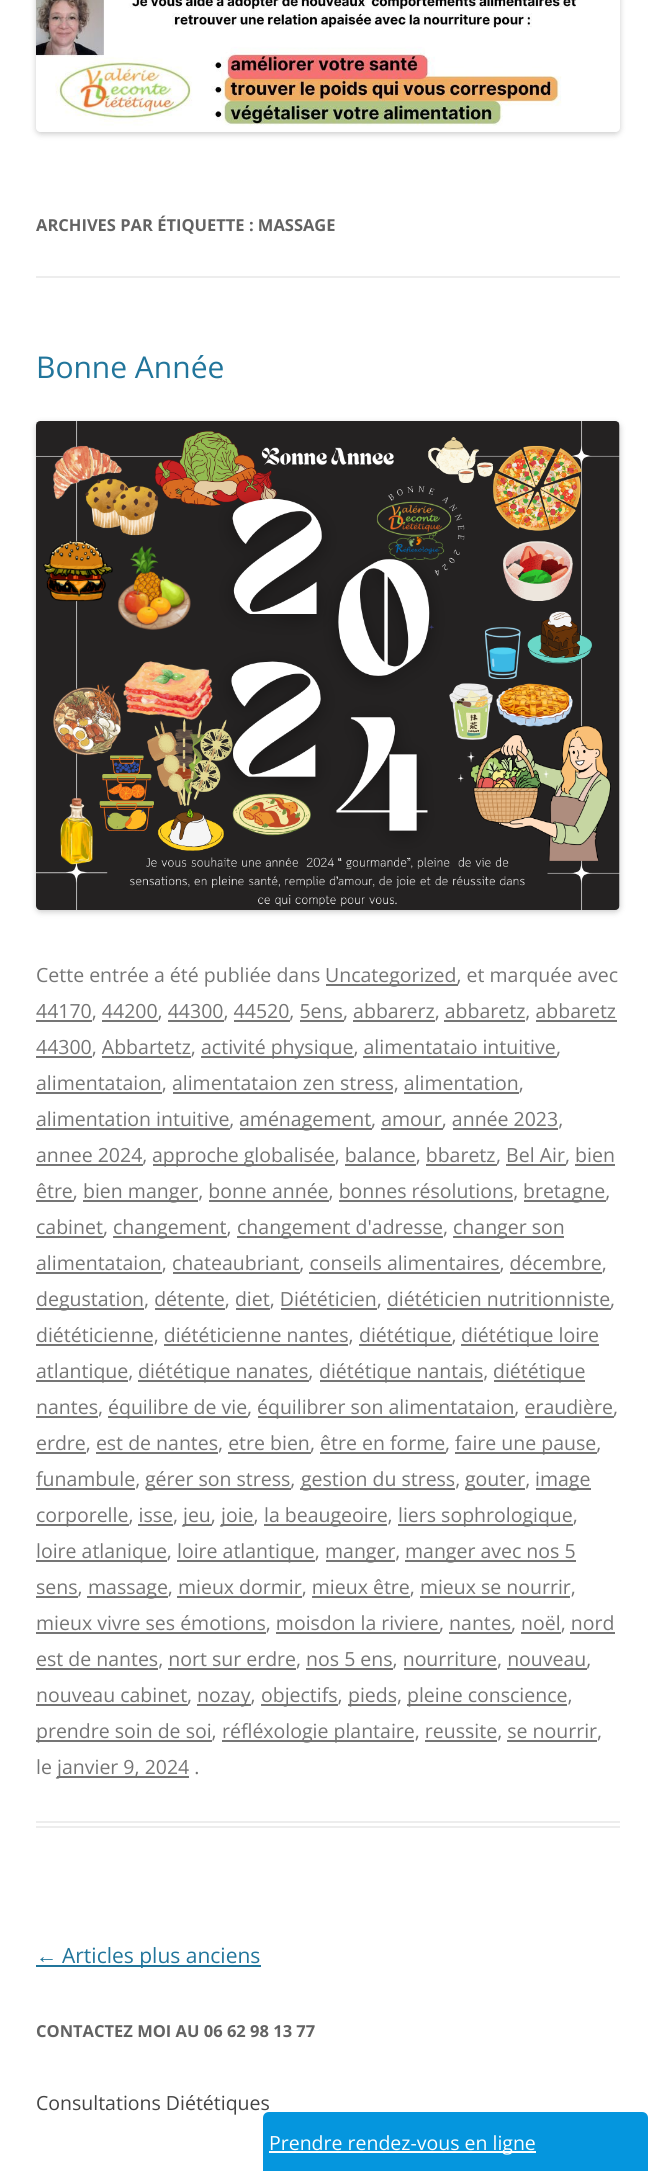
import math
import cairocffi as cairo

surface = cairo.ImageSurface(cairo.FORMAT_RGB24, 655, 2171)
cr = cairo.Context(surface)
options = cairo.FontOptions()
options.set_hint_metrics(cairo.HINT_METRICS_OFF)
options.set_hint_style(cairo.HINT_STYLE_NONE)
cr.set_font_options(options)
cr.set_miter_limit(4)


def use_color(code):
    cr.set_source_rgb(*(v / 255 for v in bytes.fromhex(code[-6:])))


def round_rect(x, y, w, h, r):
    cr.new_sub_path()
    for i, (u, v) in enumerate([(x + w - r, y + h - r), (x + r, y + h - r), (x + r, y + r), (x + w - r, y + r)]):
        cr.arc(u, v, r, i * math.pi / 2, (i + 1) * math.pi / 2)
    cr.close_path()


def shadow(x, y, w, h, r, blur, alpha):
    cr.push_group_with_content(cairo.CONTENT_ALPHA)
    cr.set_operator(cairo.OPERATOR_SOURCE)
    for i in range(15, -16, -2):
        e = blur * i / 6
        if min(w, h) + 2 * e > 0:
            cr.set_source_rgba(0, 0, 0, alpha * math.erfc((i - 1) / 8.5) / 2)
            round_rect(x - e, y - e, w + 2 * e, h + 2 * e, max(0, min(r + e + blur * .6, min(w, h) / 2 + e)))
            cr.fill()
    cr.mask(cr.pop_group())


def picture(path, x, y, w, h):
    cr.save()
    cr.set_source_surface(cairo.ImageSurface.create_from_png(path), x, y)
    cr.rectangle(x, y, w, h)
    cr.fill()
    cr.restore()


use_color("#ffffff")
cr.paint()
cr.save()
cr.set_fill_rule(cairo.FILL_RULE_EVEN_ODD)
cr.new_path()
cr.move_to(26, 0)
cr.line_to(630, 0)
cr.line_to(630, 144)
cr.line_to(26, 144)
cr.close_path()
cr.move_to(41, -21)
cr.line_to(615, -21)
cr.curve_to(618, -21, 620, -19, 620, -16)
cr.line_to(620, 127)
cr.curve_to(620, 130, 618, 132, 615, 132)
cr.line_to(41, 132)
cr.curve_to(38, 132, 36, 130, 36, 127)
cr.line_to(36, -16)
cr.curve_to(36, -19, 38, -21, 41, -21)
cr.close_path()
cr.clip()
use_color("#000000")
shadow(36, -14, 584, 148, 5, 3, 0.2)
cr.restore()
picture("img1.png", 36, 0, 540, 126)
use_color("#ededed")
cr.rectangle(36, 276, 584, 2)
cr.fill()
cr.select_font_face("Open Sans", cairo.FONT_SLANT_NORMAL, cairo.FONT_WEIGHT_BOLD)
cr.set_font_size(16.5)
use_color("#636363")
cr.move_to(36, 231)
cr.show_text("ARCHIVES PAR ÉTIQUETTE : MASSAGE")
use_color("#ededed")
cr.rectangle(36, 1821, 584, 2)
cr.fill()
cr.rectangle(36, 1826, 584, 2)
cr.fill()
cr.select_font_face("Open Sans")
cr.set_font_size(30)
use_color("#21759b")
cr.move_to(36, 378)
cr.show_text("Bonne Année")
use_color("#000000")
shadow(36, 423, 584, 489, 5, 3, 0.2)
picture("img2.png", 36, 421, 584, 489)
cr.set_font_size(19.5)
use_color("#757575")
cr.move_to(36, 982)
cr.show_text("Cette entrée a été publiée dans")
cr.rectangle(326, 984, 132, 2)
cr.fill()
cr.move_to(325, 982)
cr.show_text("Uncategorized, et marquée avec")
cr.rectangle(36, 1020, 56, 2)
cr.fill()
cr.move_to(36, 1018)
cr.show_text("44170, 44200, 44300, 44520, 5ens")
cr.rectangle(300, 1020, 44, 2)
cr.fill()
cr.move_to(343, 1018)
cr.show_text(", abbarerz, abbaretz, abbaretz")
cr.rectangle(102, 1020, 56, 2)
cr.fill()
cr.rectangle(168, 1020, 56, 2)
cr.fill()
cr.rectangle(234, 1020, 56, 2)
cr.fill()
cr.rectangle(353, 1020, 82, 2)
cr.fill()
cr.rectangle(444, 1020, 81, 2)
cr.fill()
cr.rectangle(36, 1056, 56, 2)
cr.fill()
cr.move_to(36, 1054)
cr.show_text("44300, Abbartetz,")
cr.rectangle(536, 1020, 81, 2)
cr.fill()
cr.rectangle(201, 1056, 153, 2)
cr.fill()
cr.move_to(201, 1054)
cr.show_text("activité physique, alimentataio intuitive")
cr.rectangle(363, 1056, 194, 2)
cr.fill()
cr.move_to(556, 1054)
cr.show_text(",")
cr.rectangle(102, 1056, 89, 2)
cr.fill()
cr.rectangle(36, 1092, 126, 2)
cr.fill()
cr.move_to(36, 1090)
cr.show_text("alimentataion, alimentataion zen stress, alimentation,")
cr.rectangle(173, 1092, 220, 2)
cr.fill()
cr.rectangle(404, 1092, 115, 2)
cr.fill()
cr.rectangle(36, 1128, 194, 2)
cr.fill()
cr.move_to(36, 1126)
cr.show_text("alimentation intuitive,")
cr.rectangle(240, 1128, 132, 2)
cr.fill()
cr.move_to(239, 1126)
cr.show_text("aménagement, amour, année 2023,")
cr.rectangle(381, 1128, 62, 2)
cr.fill()
cr.rectangle(453, 1128, 105, 2)
cr.fill()
cr.rectangle(36, 1164, 107, 2)
cr.fill()
cr.move_to(36, 1162)
cr.show_text("annee 2024,")
cr.rectangle(153, 1164, 182, 2)
cr.fill()
cr.move_to(152, 1162)
cr.show_text("approche globalisée, balance, bbaretz")
cr.rectangle(426, 1164, 71, 2)
cr.fill()
cr.move_to(496, 1162)
cr.show_text(", Bel Air")
cr.rectangle(506, 1164, 60, 2)
cr.fill()
cr.move_to(565, 1162)
cr.show_text(", bien")
cr.rectangle(345, 1164, 71, 2)
cr.fill()
cr.rectangle(36, 1200, 38, 2)
cr.fill()
cr.move_to(36, 1198)
cr.show_text("être,")
cr.rectangle(575, 1164, 40, 2)
cr.fill()
cr.rectangle(83, 1200, 115, 2)
cr.fill()
cr.move_to(83, 1198)
cr.show_text("bien manger, bonne année, bonnes résolutions,")
cr.rectangle(524, 1200, 82, 2)
cr.fill()
cr.move_to(523, 1198)
cr.show_text("bretagne,")
cr.rectangle(209, 1200, 120, 2)
cr.fill()
cr.rectangle(339, 1200, 174, 2)
cr.fill()
cr.rectangle(36, 1236, 68, 2)
cr.fill()
cr.move_to(36, 1234)
cr.show_text("cabinet,")
cr.rectangle(113, 1236, 114, 2)
cr.fill()
cr.move_to(113, 1234)
cr.show_text("changement,")
cr.rectangle(237, 1236, 206, 2)
cr.fill()
cr.move_to(237, 1234)
cr.show_text("changement d'adresse,")
cr.rectangle(453, 1236, 111, 2)
cr.fill()
cr.move_to(453, 1234)
cr.show_text("changer son")
cr.rectangle(36, 1272, 126, 2)
cr.fill()
cr.move_to(36, 1270)
cr.show_text("alimentataion, chateaubriant, conseils alimentaires, décembre,")
cr.rectangle(173, 1272, 127, 2)
cr.fill()
cr.rectangle(309, 1272, 191, 2)
cr.fill()
cr.rectangle(510, 1272, 92, 2)
cr.fill()
cr.rectangle(36, 1308, 108, 2)
cr.fill()
cr.move_to(36, 1306)
cr.show_text("degustation, détente, diet, Diététicien, diététicien nutritionniste")
cr.rectangle(387, 1308, 224, 2)
cr.fill()
cr.move_to(610, 1306)
cr.show_text(",")
cr.rectangle(155, 1308, 70, 2)
cr.fill()
cr.rectangle(236, 1308, 34, 2)
cr.fill()
cr.rectangle(281, 1308, 96, 2)
cr.fill()
cr.rectangle(36, 1344, 117, 2)
cr.fill()
cr.move_to(36, 1342)
cr.show_text("diététicienne, diététicienne nantes,")
cr.rectangle(359, 1344, 93, 2)
cr.fill()
cr.move_to(359, 1342)
cr.show_text("diététique,")
cr.rectangle(461, 1344, 138, 2)
cr.fill()
cr.move_to(461, 1342)
cr.show_text("diététique loire")
cr.rectangle(164, 1344, 184, 2)
cr.fill()
cr.rectangle(36, 1380, 92, 2)
cr.fill()
cr.move_to(36, 1378)
cr.show_text("atlantique,")
cr.rectangle(138, 1380, 171, 2)
cr.fill()
cr.move_to(138, 1378)
cr.show_text("diététique nanates,")
cr.rectangle(320, 1380, 163, 2)
cr.fill()
cr.move_to(319, 1378)
cr.show_text("diététique nantais,")
cr.rectangle(494, 1380, 91, 2)
cr.fill()
cr.move_to(493, 1378)
cr.show_text("diététique")
cr.rectangle(36, 1416, 62, 2)
cr.fill()
cr.move_to(36, 1414)
cr.show_text("nantes,")
cr.rectangle(108, 1416, 140, 2)
cr.fill()
cr.move_to(108, 1414)
cr.show_text("équilibre de vie,")
cr.rectangle(258, 1416, 257, 2)
cr.fill()
cr.move_to(257, 1414)
cr.show_text("équilibrer son alimentataion, eraudière,")
cr.rectangle(525, 1416, 89, 2)
cr.fill()
cr.rectangle(36, 1452, 50, 2)
cr.fill()
cr.move_to(36, 1450)
cr.show_text("erdre, est de nantes, etre bien")
cr.rectangle(228, 1452, 83, 2)
cr.fill()
cr.move_to(310, 1450)
cr.show_text(", être en forme")
cr.rectangle(320, 1452, 126, 2)
cr.fill()
cr.move_to(445, 1450)
cr.show_text(",")
cr.rectangle(455, 1452, 142, 2)
cr.fill()
cr.move_to(455, 1450)
cr.show_text("faire une pause,")
cr.rectangle(96, 1452, 122, 2)
cr.fill()
cr.rectangle(36, 1488, 99, 2)
cr.fill()
cr.move_to(36, 1486)
cr.show_text("funambule,")
cr.rectangle(146, 1488, 145, 2)
cr.fill()
cr.move_to(145, 1486)
cr.show_text("gérer son stress,")
cr.rectangle(300, 1488, 155, 2)
cr.fill()
cr.move_to(301, 1486)
cr.show_text("gestion du stress,")
cr.rectangle(465, 1488, 60, 2)
cr.fill()
cr.move_to(465, 1486)
cr.show_text("gouter,")
cr.rectangle(536, 1488, 55, 2)
cr.fill()
cr.move_to(535, 1486)
cr.show_text("image")
cr.rectangle(36, 1524, 93, 2)
cr.fill()
cr.move_to(36, 1522)
cr.show_text("corporelle, isse,")
cr.rectangle(183, 1524, 29, 2)
cr.fill()
cr.move_to(183, 1522)
cr.show_text("jeu,")
cr.rectangle(221, 1524, 33, 2)
cr.fill()
cr.move_to(221, 1522)
cr.show_text("joie,")
cr.rectangle(264, 1524, 123, 2)
cr.fill()
cr.move_to(264, 1522)
cr.show_text("la beaugeoire,")
cr.rectangle(398, 1524, 175, 2)
cr.fill()
cr.move_to(398, 1522)
cr.show_text("liers sophrologique,")
cr.rectangle(138, 1524, 35, 2)
cr.fill()
cr.rectangle(36, 1560, 131, 2)
cr.fill()
cr.move_to(36, 1558)
cr.show_text("loire atlanique,")
cr.rectangle(177, 1560, 138, 2)
cr.fill()
cr.move_to(177, 1558)
cr.show_text("loire atlantique,")
cr.rectangle(326, 1560, 69, 2)
cr.fill()
cr.move_to(325, 1558)
cr.show_text("manger,")
cr.rectangle(405, 1560, 171, 2)
cr.fill()
cr.move_to(405, 1558)
cr.show_text("manger avec nos 5")
cr.rectangle(36, 1596, 42, 2)
cr.fill()
cr.move_to(36, 1594)
cr.show_text("sens,")
cr.rectangle(87, 1596, 81, 2)
cr.fill()
cr.move_to(88, 1594)
cr.show_text("massage, mieux dormir, mieux être, mieux se nourrir,")
cr.rectangle(177, 1596, 125, 2)
cr.fill()
cr.rectangle(312, 1596, 98, 2)
cr.fill()
cr.rectangle(420, 1596, 150, 2)
cr.fill()
cr.rectangle(36, 1632, 230, 2)
cr.fill()
cr.move_to(36, 1630)
cr.show_text("mieux vivre ses émotions, moisdon la riviere")
cr.rectangle(276, 1632, 164, 2)
cr.fill()
cr.move_to(439, 1630)
cr.show_text(", nantes")
cr.rectangle(449, 1632, 63, 2)
cr.fill()
cr.move_to(511, 1630)
cr.show_text(", noël, nord")
cr.rectangle(521, 1632, 40, 2)
cr.fill()
cr.rectangle(36, 1668, 122, 2)
cr.fill()
cr.move_to(36, 1666)
cr.show_text("est de nantes, nort sur erdre, nos 5 ens, nourriture, nouveau,")
cr.rectangle(570, 1632, 45, 2)
cr.fill()
cr.rectangle(168, 1668, 128, 2)
cr.fill()
cr.rectangle(306, 1668, 87, 2)
cr.fill()
cr.rectangle(404, 1668, 93, 2)
cr.fill()
cr.rectangle(507, 1668, 80, 2)
cr.fill()
cr.rectangle(36, 1704, 152, 2)
cr.fill()
cr.move_to(36, 1702)
cr.show_text("nouveau cabinet,")
cr.rectangle(197, 1704, 54, 2)
cr.fill()
cr.move_to(197, 1702)
cr.show_text("nozay,")
cr.rectangle(261, 1704, 77, 2)
cr.fill()
cr.move_to(261, 1702)
cr.show_text("objectifs,")
cr.rectangle(348, 1704, 48, 2)
cr.fill()
cr.move_to(348, 1702)
cr.show_text("pieds,")
cr.rectangle(407, 1704, 160, 2)
cr.fill()
cr.move_to(407, 1702)
cr.show_text("pleine conscience,")
cr.rectangle(36, 1740, 176, 2)
cr.fill()
cr.move_to(36, 1738)
cr.show_text("prendre soin de soi,")
cr.rectangle(222, 1740, 192, 2)
cr.fill()
cr.move_to(222, 1738)
cr.show_text("réfléxologie plantaire, reussite, se nourrir,")
cr.rectangle(425, 1740, 72, 2)
cr.fill()
cr.rectangle(507, 1740, 90, 2)
cr.fill()
cr.move_to(36, 1774)
cr.show_text("le")
cr.rectangle(57, 1776, 132, 2)
cr.fill()
cr.move_to(57, 1774)
cr.show_text("janvier 9, 2024 .")
cr.select_font_face("Liberation Sans")
cr.set_font_size(21)
use_color("#21759b")
cr.move_to(36, 1963)
cr.show_text("←")
cr.rectangle(36, 1965, 225, 2)
cr.fill()
cr.select_font_face("Open Sans")
cr.move_to(62, 1963)
cr.show_text("Articles plus anciens")
cr.select_font_face("Open Sans", cairo.FONT_SLANT_NORMAL, cairo.FONT_WEIGHT_BOLD)
cr.set_font_size(16.5)
use_color("#636363")
cr.move_to(36, 2037)
cr.show_text("CONTACTEZ MOI AU 06 62 98 13 77")
cr.select_font_face("Open Sans")
cr.set_font_size(19.5)
use_color("#444444")
cr.move_to(36, 2110)
cr.show_text("Consultations Diététiques")
use_color("#0596de")
cr.new_path()
cr.move_to(269, 2112)
cr.line_to(642, 2112)
cr.curve_to(645.5, 2112, 648, 2114.5, 648, 2118)
cr.line_to(648, 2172)
cr.line_to(263, 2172)
cr.line_to(263, 2118)
cr.curve_to(263, 2114.5, 265.5, 2112, 269, 2112)
cr.close_path()
cr.fill()
use_color("#ffffff")
cr.rectangle(269, 2151, 267, 2)
cr.fill()
cr.move_to(269, 2150)
cr.show_text("Prendre rendez-vous en ligne")
surface.write_to_png("result.png")
